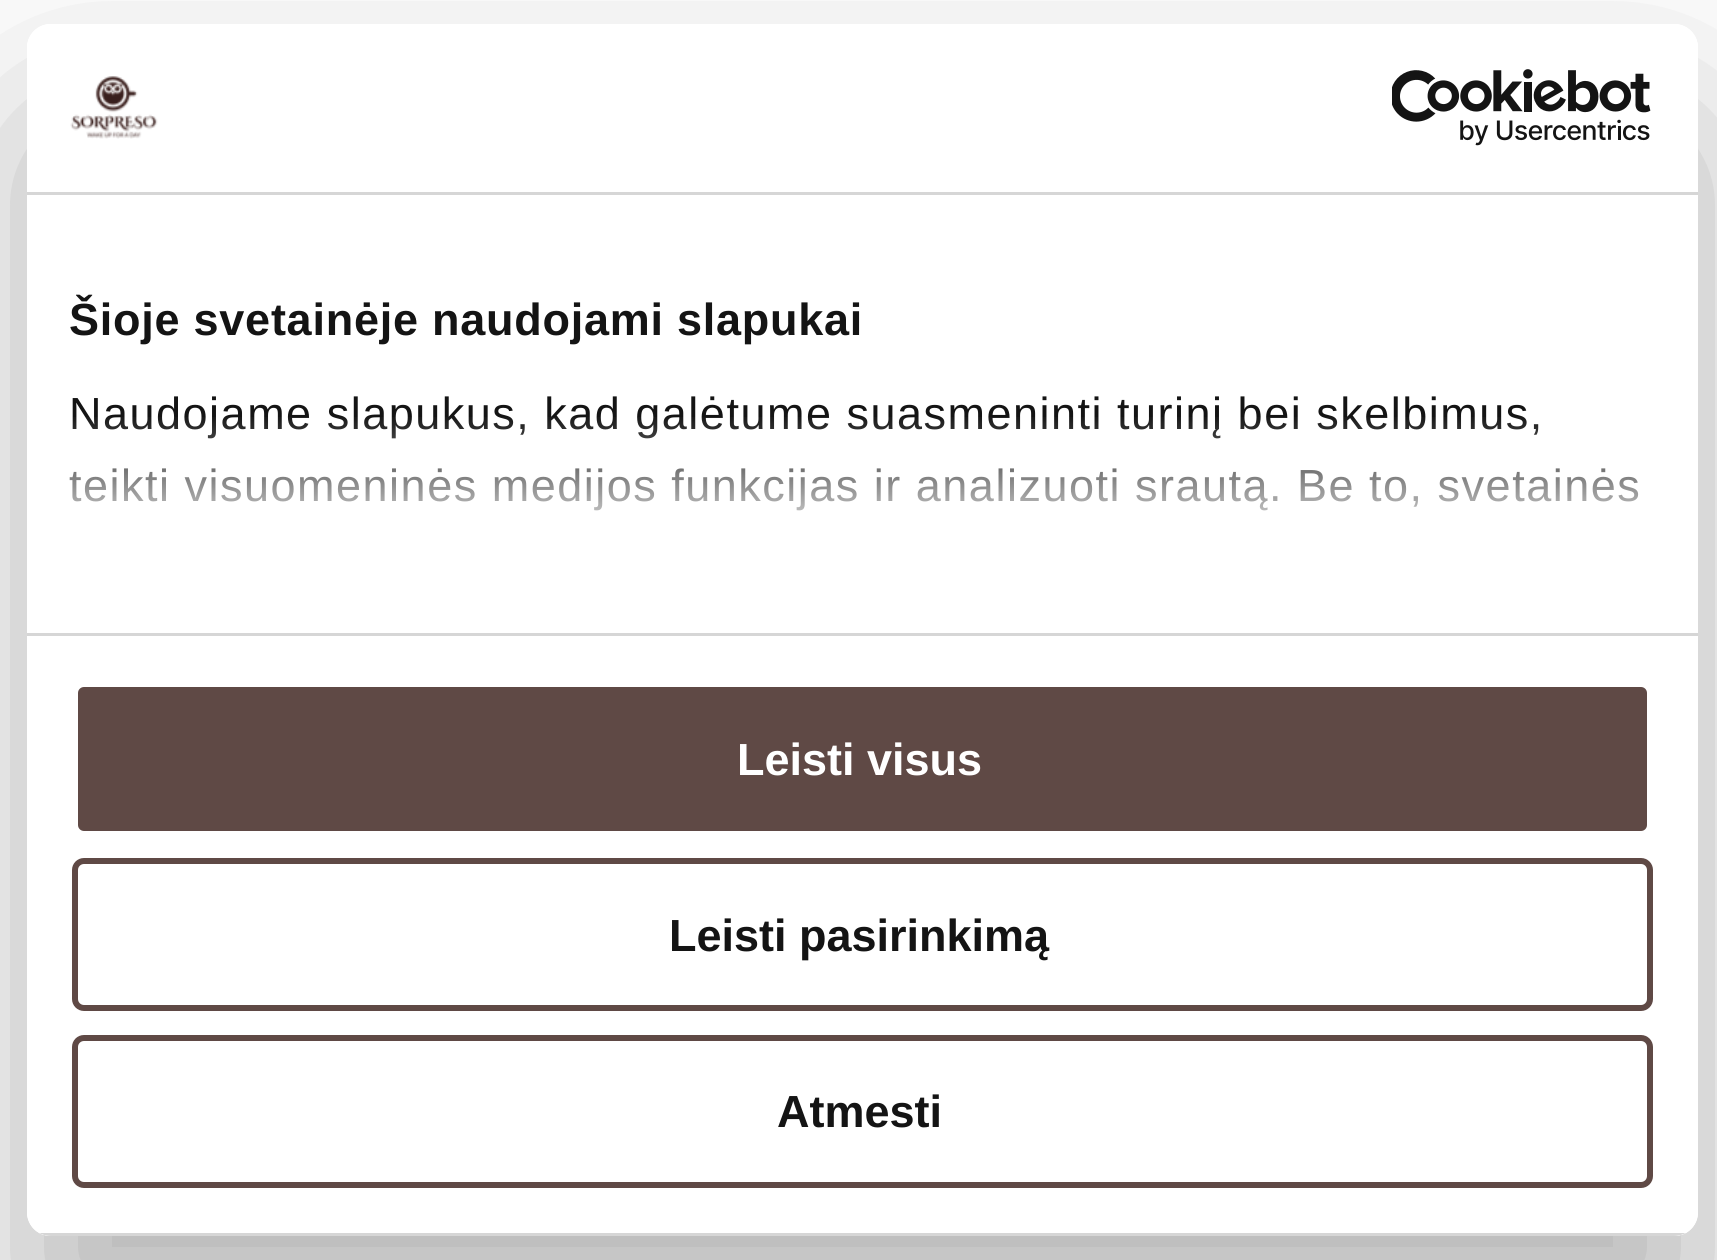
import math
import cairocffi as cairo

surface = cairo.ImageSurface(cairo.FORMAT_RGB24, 1717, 1260)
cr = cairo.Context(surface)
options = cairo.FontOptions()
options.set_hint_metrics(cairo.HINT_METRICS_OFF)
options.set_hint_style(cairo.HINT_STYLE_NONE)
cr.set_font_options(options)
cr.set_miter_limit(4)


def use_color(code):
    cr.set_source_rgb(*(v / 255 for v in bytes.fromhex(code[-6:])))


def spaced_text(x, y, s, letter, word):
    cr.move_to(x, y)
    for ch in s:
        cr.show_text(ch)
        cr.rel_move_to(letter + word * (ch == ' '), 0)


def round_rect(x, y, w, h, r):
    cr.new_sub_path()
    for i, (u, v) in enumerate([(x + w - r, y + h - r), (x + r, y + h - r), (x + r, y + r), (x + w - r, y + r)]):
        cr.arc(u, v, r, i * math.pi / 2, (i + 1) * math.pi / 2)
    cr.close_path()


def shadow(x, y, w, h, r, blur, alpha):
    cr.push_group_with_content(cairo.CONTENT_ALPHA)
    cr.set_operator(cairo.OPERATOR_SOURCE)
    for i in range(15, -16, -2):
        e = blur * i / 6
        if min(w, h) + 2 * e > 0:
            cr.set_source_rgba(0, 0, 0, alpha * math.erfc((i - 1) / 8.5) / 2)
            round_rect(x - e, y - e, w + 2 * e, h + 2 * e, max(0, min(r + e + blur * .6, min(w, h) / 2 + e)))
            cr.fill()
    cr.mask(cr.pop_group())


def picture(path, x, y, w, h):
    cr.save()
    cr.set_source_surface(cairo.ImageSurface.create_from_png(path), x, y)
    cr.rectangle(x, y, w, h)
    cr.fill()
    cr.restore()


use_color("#ffffff")
cr.paint()
cr.save()
cr.set_fill_rule(cairo.FILL_RULE_EVEN_ODD)
cr.new_path()
cr.move_to(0, 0)
cr.line_to(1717, 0)
cr.line_to(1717, 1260)
cr.line_to(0, 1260)
cr.close_path()
cr.move_to(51, 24)
cr.line_to(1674, 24)
cr.curve_to(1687.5, 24, 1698, 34.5, 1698, 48)
cr.line_to(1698, 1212)
cr.curve_to(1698, 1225.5, 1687.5, 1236, 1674, 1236)
cr.line_to(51, 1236)
cr.curve_to(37.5, 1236, 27, 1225.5, 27, 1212)
cr.line_to(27, 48)
cr.curve_to(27, 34.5, 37.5, 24, 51, 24)
cr.close_path()
cr.clip()
use_color("#000000")
shadow(27, 120, 1671, 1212, 24, 102, 0.3)
cr.restore()
use_color("#ffffff")
round_rect(27, 24, 1671, 1212, 24)
cr.fill()
use_color("#d6d6d6")
cr.rectangle(27, 192, 1671, 3)
cr.fill()
picture("img1.png", 70, 76, 88, 63)
picture("img2.png", 1392, 69, 259, 77)
cr.rectangle(27, 633, 1671, 3)
cr.fill()
cr.select_font_face("Liberation Sans", cairo.FONT_SLANT_NORMAL, cairo.FONT_WEIGHT_BOLD)
cr.set_font_size(45)
use_color("#141414")
spaced_text(69, 335, "Šioje svetainėje naudojami slapukai", 0.75, 0)
cr.select_font_face("Liberation Sans")
spaced_text(69, 429, "Naudojame slapukus, kad galėtume suasmeninti turinį bei skelbimus,", 1.5, 0)
spaced_text(69, 501, "teikti visuomeninės medijos funkcijas ir analizuoti srautą. Be to, svetainės", 1.5, 0)
gradient = cairo.LinearGradient(842, 633, 842, 414)
gradient.add_color_stop_rgba(0, 1, 1, 1, 1)
gradient.add_color_stop_rgba(0.5, 1, 1, 1, 0.8)
gradient.add_color_stop_rgba(1, 1, 1, 1, 0)
cr.set_source(gradient)
cr.rectangle(69, 417, 1570, 94)
cr.fill()
cr.save()
round_rect(27, 24, 1671, 1212, 24)
cr.clip()
use_color("#d6d6d6")
cr.rectangle(39, 1233, 1647, 3)
cr.fill()
cr.restore()
use_color("#5f4945")
round_rect(75, 684, 1575, 150, 9)
cr.fill_preserve()
use_color("#ffffff")
cr.set_line_width(6)
cr.stroke()
cr.select_font_face("Liberation Sans", cairo.FONT_SLANT_NORMAL, cairo.FONT_WEIGHT_BOLD)
cr.move_to(737, 775)
cr.show_text("Leisti visus")
round_rect(75, 861, 1575, 147, 9)
use_color("#5f4945")
cr.stroke()
use_color("#141414")
cr.move_to(669, 951)
cr.show_text("Leisti pasirinkimą")
round_rect(75, 1038, 1575, 147, 9)
use_color("#5f4945")
cr.stroke()
use_color("#141414")
cr.move_to(777, 1127)
cr.show_text("Atmesti")
surface.write_to_png("result.png")
